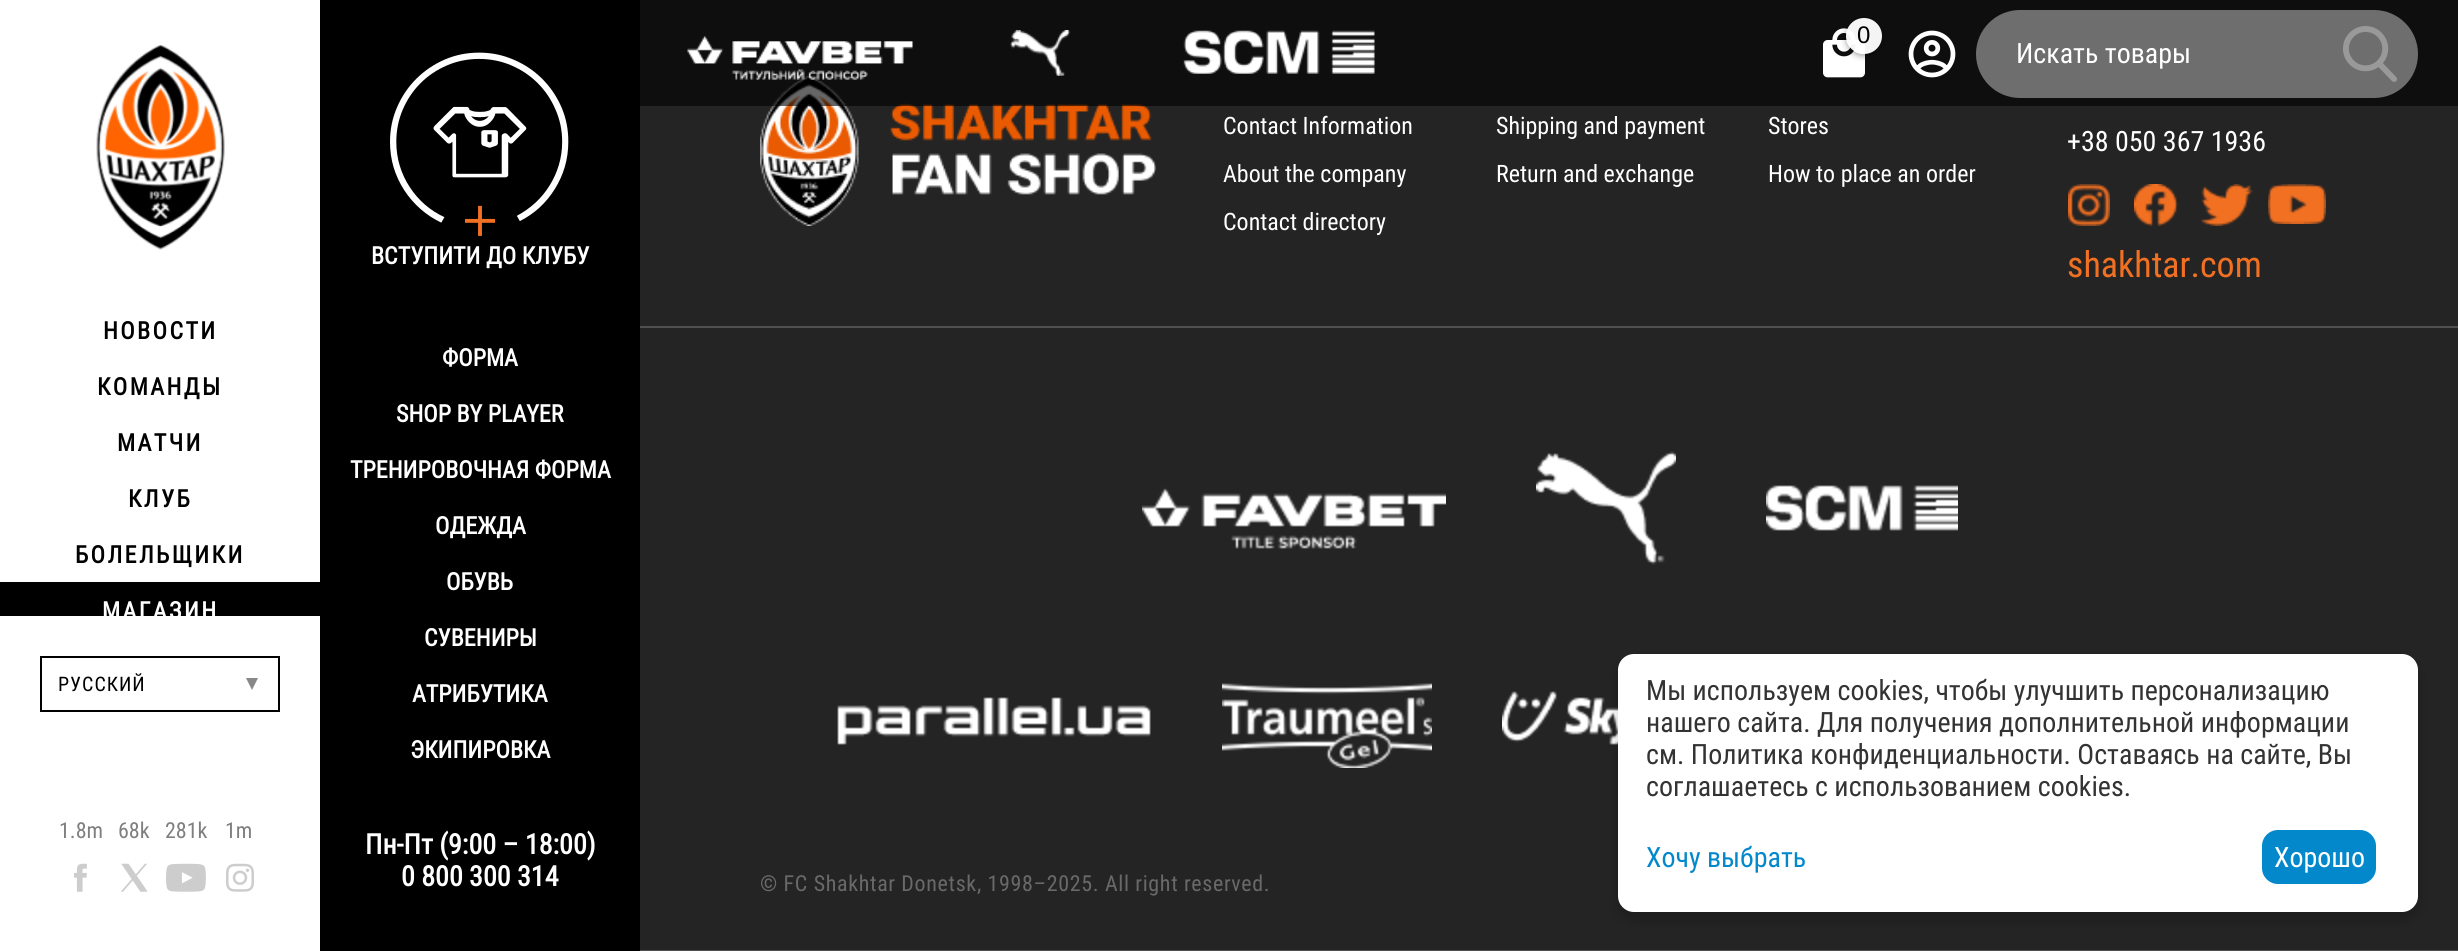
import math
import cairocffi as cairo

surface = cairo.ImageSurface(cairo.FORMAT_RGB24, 2458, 951)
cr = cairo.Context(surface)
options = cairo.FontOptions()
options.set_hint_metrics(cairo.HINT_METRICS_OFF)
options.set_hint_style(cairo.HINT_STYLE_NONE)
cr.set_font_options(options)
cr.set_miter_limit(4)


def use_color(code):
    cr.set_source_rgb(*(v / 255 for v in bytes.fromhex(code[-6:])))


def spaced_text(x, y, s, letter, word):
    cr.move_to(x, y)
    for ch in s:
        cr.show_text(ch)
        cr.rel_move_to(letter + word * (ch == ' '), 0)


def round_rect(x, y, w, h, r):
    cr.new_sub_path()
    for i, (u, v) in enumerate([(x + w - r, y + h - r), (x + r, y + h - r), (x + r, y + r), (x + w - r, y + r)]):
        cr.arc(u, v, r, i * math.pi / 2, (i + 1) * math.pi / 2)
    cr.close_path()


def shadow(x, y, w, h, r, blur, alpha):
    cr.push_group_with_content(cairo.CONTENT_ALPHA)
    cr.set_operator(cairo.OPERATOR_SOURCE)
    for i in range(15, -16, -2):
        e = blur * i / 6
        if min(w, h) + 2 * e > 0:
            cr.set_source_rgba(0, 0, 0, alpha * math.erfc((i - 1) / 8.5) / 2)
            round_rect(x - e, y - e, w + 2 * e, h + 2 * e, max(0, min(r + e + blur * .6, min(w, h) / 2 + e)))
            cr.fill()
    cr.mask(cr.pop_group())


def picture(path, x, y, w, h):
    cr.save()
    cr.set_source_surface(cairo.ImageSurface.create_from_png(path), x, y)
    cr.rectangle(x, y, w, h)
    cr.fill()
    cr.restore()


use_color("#ffffff")
cr.paint()
use_color("#242424")
cr.rectangle(640, 0, 1818, 950)
cr.fill()
picture("img14.png", 760, 76, 396, 150)
cr.set_source_rgba(0, 0, 0, 0.6)
cr.rectangle(640, 0, 1818, 106)
cr.fill()
picture("img1.png", 1823, 28, 42, 50)
cr.save()
cr.set_fill_rule(cairo.FILL_RULE_EVEN_ODD)
cr.new_path()
cr.move_to(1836, 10)
cr.line_to(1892, 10)
cr.line_to(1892, 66)
cr.line_to(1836, 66)
cr.close_path()
cr.move_to(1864, 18)
cr.curve_to(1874, 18, 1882, 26, 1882, 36)
cr.curve_to(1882, 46, 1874, 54, 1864, 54)
cr.curve_to(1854, 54, 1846, 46, 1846, 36)
cr.curve_to(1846, 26, 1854, 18, 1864, 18)
cr.close_path()
cr.clip()
use_color("#000000")
shadow(1846, 20, 36, 36, 18, 3, 0.35)
cr.restore()
cr.set_source_rgba(1, 1, 1, 0.95)
cr.arc(1864, 36, 18, 0, 2 * math.pi)
cr.fill()
cr.select_font_face("Liberation Sans")
cr.set_font_size(24)
use_color("#000000")
cr.move_to(1857, 43)
cr.show_text("0")
picture("img2.png", 1908, 30, 48, 48)
cr.set_source_rgba(1, 1, 1, 0.4)
round_rect(1976, 10, 442, 88, 44)
cr.fill()
cr.select_font_face("Roboto Condensed")
cr.set_font_size(28)
use_color("#ffffff")
cr.move_to(2016, 63)
cr.show_text("Искать товары")
picture("img3.png", 2343, 26, 54, 56)
picture("img4.png", 687, 35, 226, 45)
picture("img5.png", 1010, 30, 61, 46)
picture("img6.png", 1183, 30, 192, 44)
picture("img7.png", 96, 45, 129, 205)
use_color("#000000")
cr.rectangle(320, 0, 320, 951)
cr.fill()
picture("img8.png", 390, 52, 179, 171)
picture("img9.png", 465, 205, 30, 31)
cr.select_font_face("Roboto Condensed", cairo.FONT_SLANT_NORMAL, cairo.FONT_WEIGHT_BOLD)
cr.set_font_size(24)
use_color("#ffffff")
cr.move_to(371, 264)
cr.show_text("ВСТУПИТИ ДО КЛУБУ")
use_color("#000000")
spaced_text(103, 339, "НОВОСТИ", 2.4, 0)
cr.rectangle(0, 582, 320, 34)
cr.fill()
use_color("#ffffff")
spaced_text(102, 619, "МАГАЗИН", 2.4, 0)
cr.move_to(442, 366)
cr.show_text("ФОРМА")
cr.move_to(396, 422)
cr.show_text("SHOP BY PLAYER")
cr.move_to(350, 478)
cr.show_text("ТРЕНИРОВОЧНАЯ ФОРМА")
cr.move_to(435, 534)
cr.show_text("ОДЕЖДА")
cr.move_to(446, 590)
cr.show_text("ОБУВЬ")
cr.move_to(424, 646)
cr.show_text("СУВЕНИРЫ")
cr.move_to(412, 702)
cr.show_text("АТРИБУТИКА")
cr.move_to(410, 758)
cr.show_text("ЭКИПИРОВКА")
cr.set_font_size(28)
cr.move_to(365, 854)
cr.show_text("Пн-Пт (9:00 – 18:00)")
cr.move_to(401, 886)
cr.show_text("0 800 300 314")
cr.set_font_size(24)
use_color("#000000")
spaced_text(97, 395, "КОМАНДЫ", 2.4, 0)
spaced_text(117, 451, "МАТЧИ", 2.4, 0)
spaced_text(128, 507, "КЛУБ", 2.4, 0)
spaced_text(75, 563, "БОЛЕЛЬЩИКИ", 2.4, 0)
cr.rectangle(41, 657, 238, 54)
cr.stroke()
cr.select_font_face("Roboto Condensed")
cr.set_font_size(20)
spaced_text(58, 691, "РУССКИЙ", 1, 0)
use_color("#888888")
cr.new_path()
cr.move_to(246, 678)
cr.line_to(258, 678)
cr.line_to(252, 690)
cr.close_path()
cr.fill()
cr.set_font_size(22)
use_color("#7f7f7f")
cr.move_to(59, 838)
cr.show_text("1.8m")
picture("img10.png", 74, 863, 13, 29)
cr.move_to(118, 838)
cr.show_text("68k")
picture("img11.png", 121, 863, 27, 29)
cr.move_to(165, 838)
cr.show_text("281k")
picture("img12.png", 166, 863, 40, 29)
cr.move_to(225, 838)
cr.show_text("1m")
picture("img13.png", 226, 863, 28, 29)
use_color("#505050")
cr.rectangle(640, 326, 1818, 2)
cr.fill()
cr.set_font_size(24)
use_color("#ffffff")
cr.move_to(1223, 134)
cr.show_text("Contact Information")
cr.move_to(1223, 182)
cr.show_text("About the company")
cr.move_to(1223, 230)
cr.show_text("Contact directory")
cr.move_to(1496, 134)
cr.show_text("Shipping and payment")
cr.move_to(1496, 182)
cr.show_text("Return and exchange")
cr.move_to(1768, 134)
cr.show_text("Stores")
cr.move_to(1768, 182)
cr.show_text("How to place an order")
cr.set_font_size(28)
cr.move_to(2067, 151)
cr.show_text("+38 050 367 1936")
picture("img15.png", 2068, 184, 42, 42)
picture("img16.png", 2134, 184, 44, 42)
picture("img17.png", 2201, 184, 52, 42)
picture("img18.png", 2268, 184, 58, 40)
cr.set_font_size(36)
use_color("#f27022")
cr.move_to(2067, 277)
cr.show_text("shakhtar.com")
use_color("#505050")
cr.rectangle(640, 950, 1818, 1)
cr.fill()
picture("img19.png", 1142, 487, 304, 62)
picture("img20.png", 1536, 451, 140, 114)
picture("img21.png", 1766, 485, 192, 46)
picture("img22.png", 837, 697, 314, 48)
picture("img23.png", 1222, 683, 210, 85)
picture("img24.png", 1502, 691, 116, 54)
cr.set_font_size(22)
use_color("#696969")
spaced_text(760, 891, "© FC Shakhtar Donetsk, 1998–2025. All right reserved.", 0.65, 0)
use_color("#000000")
shadow(1618, 662, 800, 258, 16, 6, 0.2)
use_color("#ffffff")
round_rect(1618, 654, 800, 258, 16)
cr.fill()
cr.set_font_size(28)
use_color("#333333")
cr.move_to(1646, 700)
cr.show_text("Мы используем cookies, чтобы улучшить персонализацию")
cr.move_to(1646, 732)
cr.show_text("нашего сайта. Для получения дополнительной информации")
cr.move_to(1646, 764)
cr.show_text("см. Политика конфиденциальности. Оставаясь на сайте, Вы")
cr.move_to(1646, 796)
cr.show_text("соглашаетесь с использованием cookies.")
use_color("#0388cc")
cr.move_to(1646, 867)
cr.show_text("Хочу выбрать")
round_rect(2262, 830, 114, 54, 16)
cr.fill()
use_color("#ffffff")
cr.move_to(2274, 867)
cr.show_text("Хорошо")
surface.write_to_png("result.png")
